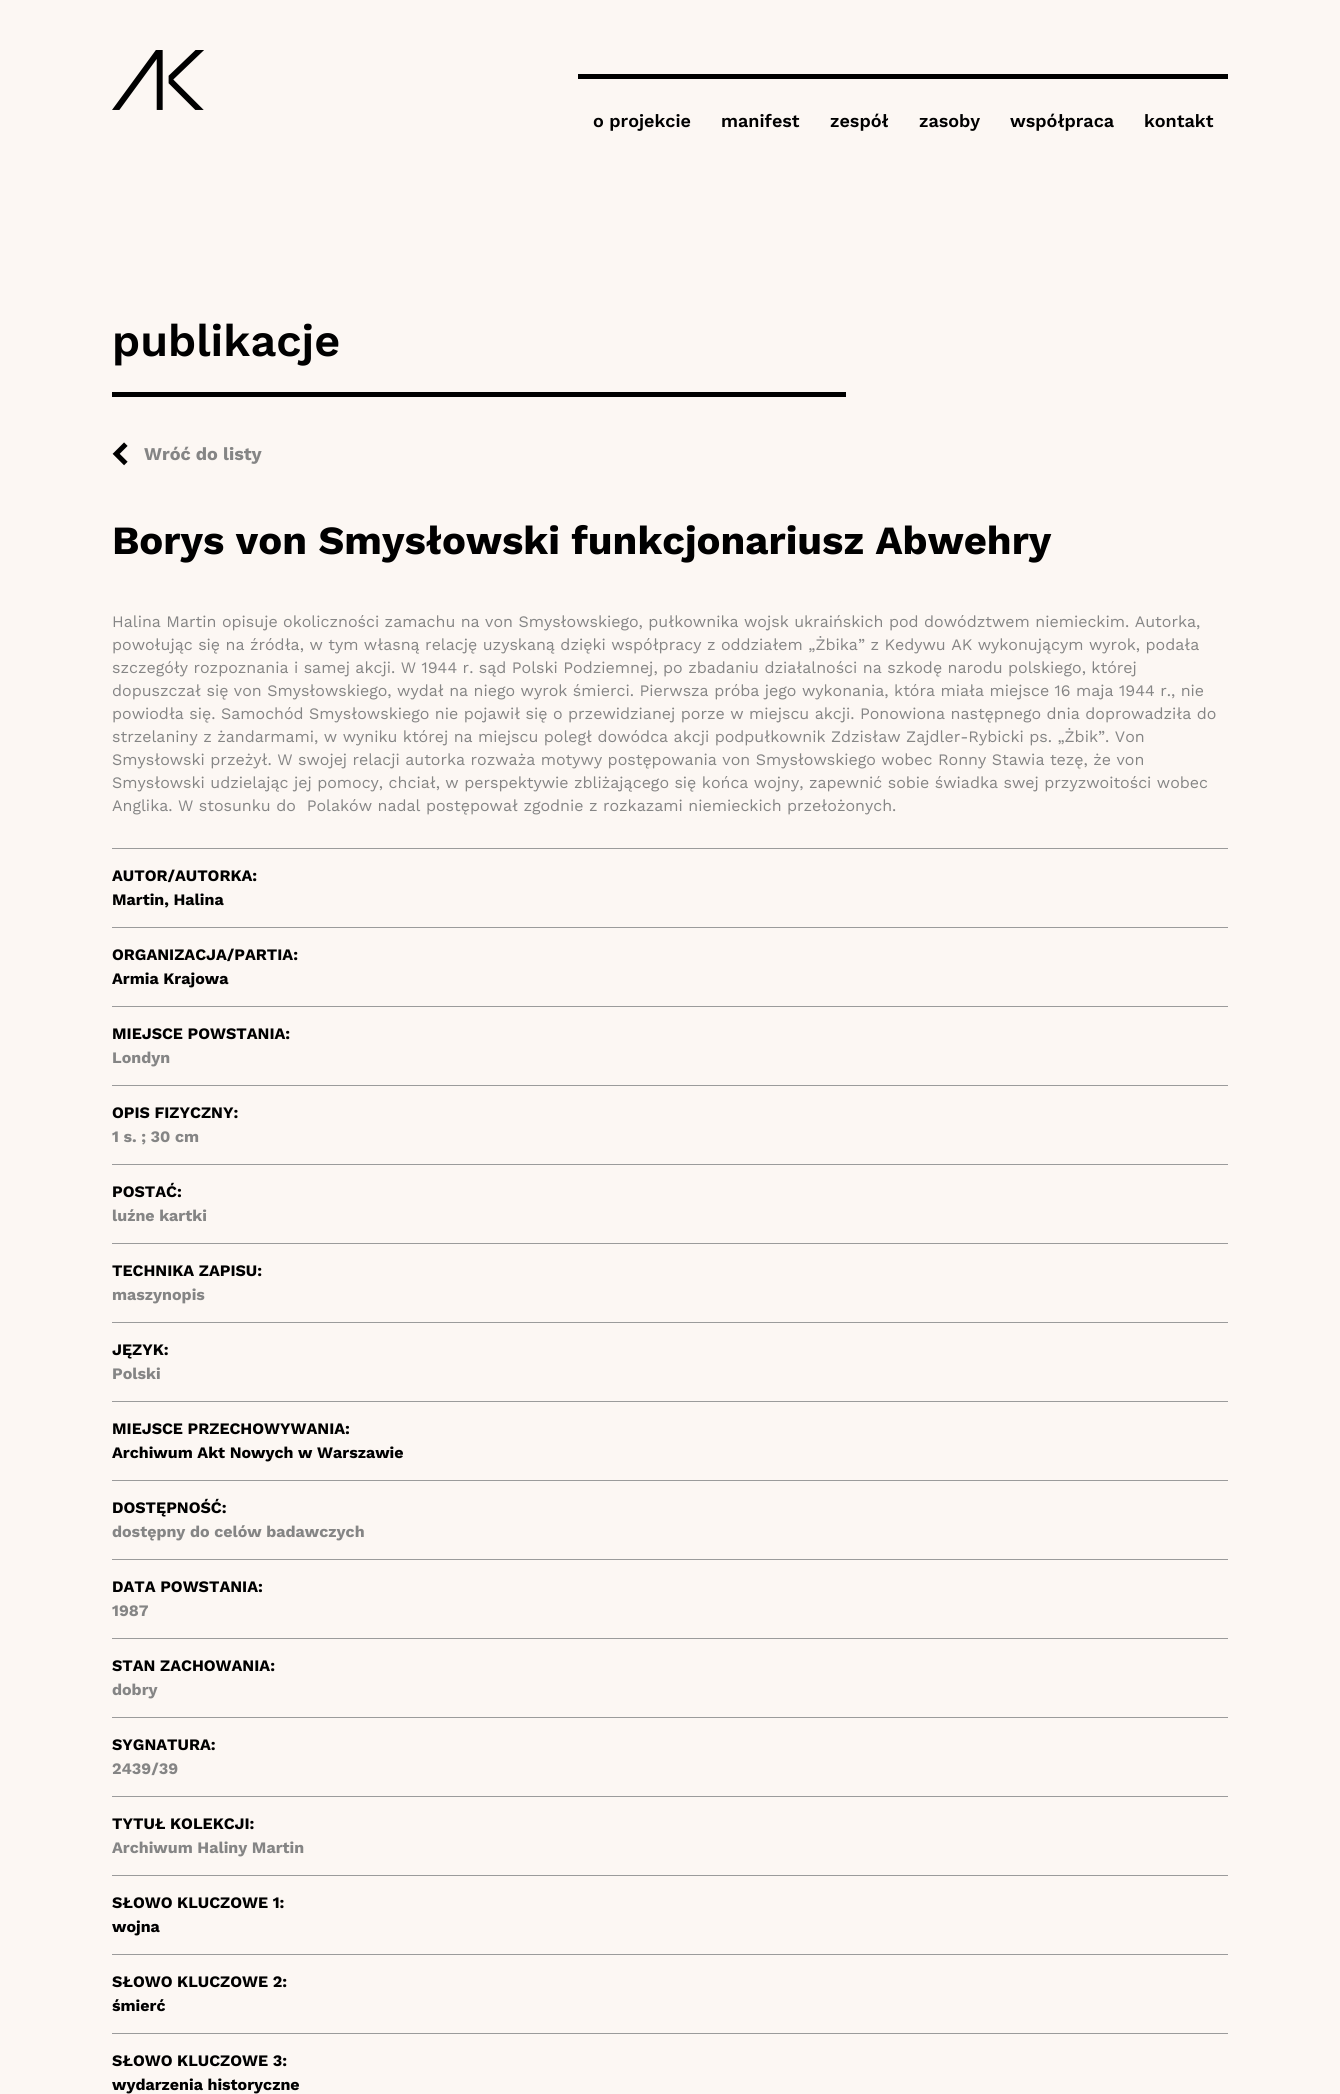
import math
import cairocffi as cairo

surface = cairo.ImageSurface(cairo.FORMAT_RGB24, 1340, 2094)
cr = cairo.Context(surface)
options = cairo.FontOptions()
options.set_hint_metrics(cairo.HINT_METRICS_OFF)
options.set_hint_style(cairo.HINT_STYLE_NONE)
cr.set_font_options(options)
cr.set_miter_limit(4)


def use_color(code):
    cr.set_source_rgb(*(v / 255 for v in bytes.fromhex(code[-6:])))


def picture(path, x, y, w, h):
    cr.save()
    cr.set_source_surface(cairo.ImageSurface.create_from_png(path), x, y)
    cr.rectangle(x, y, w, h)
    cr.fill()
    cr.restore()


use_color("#fcf7f3")
cr.paint()
picture("img1.png", 112, 50, 92, 60)
use_color("#000000")
cr.rectangle(578, 74, 650, 5)
cr.fill()
cr.select_font_face("Work Sans SemiBold")
cr.set_font_size(18)
cr.move_to(593, 127)
cr.show_text("o projekcie")
cr.move_to(721, 127)
cr.show_text("manifest")
cr.move_to(830, 127)
cr.show_text("zespół")
cr.move_to(919, 127)
cr.show_text("zasoby")
cr.move_to(1010, 127)
cr.show_text("współpraca")
cr.move_to(1144, 127)
cr.show_text("kontakt")
cr.rectangle(112, 392, 734, 5)
cr.fill()
cr.set_font_size(45)
cr.move_to(112, 356)
cr.show_text("publikacje")
picture("img2.png", 112, 442, 16, 24)
cr.select_font_face("Work Sans", cairo.FONT_SLANT_NORMAL, cairo.FONT_WEIGHT_BOLD)
cr.set_font_size(18)
use_color("#858585")
cr.move_to(144, 460)
cr.show_text("Wróć do listy")
cr.set_font_size(40)
use_color("#000000")
cr.move_to(112, 554)
cr.show_text("Borys von Smysłowski funkcjonariusz Abwehry")
use_color("#9b9b9b")
cr.rectangle(112, 848, 1116, 1)
cr.fill()
cr.select_font_face("Work Sans")
cr.set_font_size(16)
use_color("#858585")
cr.move_to(112, 627)
cr.show_text("Halina Martin opisuje okoliczności zamachu na von Smysłowskiego, pułkownika wojsk ukraińskich pod dowództwem niemieckim. Autorka,")
cr.move_to(112, 650)
cr.show_text("powołując się na źródła, w tym własną relację uzyskaną dzięki współpracy z oddziałem „Żbika” z Kedywu AK wykonującym wyrok, podała")
cr.move_to(112, 673)
cr.show_text("szczegóły rozpoznania i samej akcji. W 1944 r. sąd Polski Podziemnej, po zbadaniu działalności na szkodę narodu polskiego, której")
cr.move_to(112, 696)
cr.show_text("dopuszczał się von Smysłowskiego, wydał na niego wyrok śmierci. Pierwsza próba jego wykonania, która miała miejsce 16 maja 1944 r., nie")
cr.move_to(112, 719)
cr.show_text("powiodła się. Samochód Smysłowskiego nie pojawił się o przewidzianej porze w miejscu akcji. Ponowiona następnego dnia doprowadziła do")
cr.move_to(112, 742)
cr.show_text("strzelaniny z żandarmami, w wyniku której na miejscu poległ dowódca akcji podpułkownik Zdzisław Zajdler-Rybicki ps. „Żbik”. Von")
cr.move_to(112, 765)
cr.show_text("Smysłowski przeżył. W swojej relacji autorka rozważa motywy postępowania von Smysłowskiego wobec Ronny Stawia tezę, że von")
cr.move_to(112, 788)
cr.show_text("Smysłowski udzielając jej pomocy, chciał, w perspektywie zbliżającego się końca wojny, zapewnić sobie świadka swej przyzwoitości wobec")
cr.move_to(112, 811)
cr.show_text("Anglika. W stosunku do  Polaków nadal postępował zgodnie z rozkazami niemieckich przełożonych.")
use_color("#9b9b9b")
cr.rectangle(112, 927, 1116, 1)
cr.fill()
cr.select_font_face("Work Sans", cairo.FONT_SLANT_NORMAL, cairo.FONT_WEIGHT_BOLD)
use_color("#000000")
cr.move_to(112, 881)
cr.show_text("AUTOR/AUTORKA:")
cr.move_to(112, 905)
cr.show_text("Martin, Halina")
use_color("#9b9b9b")
cr.rectangle(112, 1006, 1116, 1)
cr.fill()
use_color("#000000")
cr.move_to(112, 960)
cr.show_text("ORGANIZACJA/PARTIA:")
cr.move_to(112, 984)
cr.show_text("Armia Krajowa")
use_color("#9b9b9b")
cr.rectangle(112, 1085, 1116, 1)
cr.fill()
use_color("#000000")
cr.move_to(112, 1039)
cr.show_text("MIEJSCE POWSTANIA:")
use_color("#858585")
cr.move_to(112, 1063)
cr.show_text("Londyn")
use_color("#9b9b9b")
cr.rectangle(112, 1164, 1116, 1)
cr.fill()
use_color("#000000")
cr.move_to(112, 1118)
cr.show_text("OPIS FIZYCZNY:")
use_color("#858585")
cr.move_to(112, 1142)
cr.show_text("1 s. ; 30 cm")
use_color("#9b9b9b")
cr.rectangle(112, 1243, 1116, 1)
cr.fill()
use_color("#000000")
cr.move_to(112, 1197)
cr.show_text("POSTAĆ:")
use_color("#858585")
cr.move_to(112, 1221)
cr.show_text("luźne kartki")
use_color("#9b9b9b")
cr.rectangle(112, 1322, 1116, 1)
cr.fill()
use_color("#000000")
cr.move_to(112, 1276)
cr.show_text("TECHNIKA ZAPISU:")
use_color("#858585")
cr.move_to(112, 1300)
cr.show_text("maszynopis")
use_color("#9b9b9b")
cr.rectangle(112, 1401, 1116, 1)
cr.fill()
use_color("#000000")
cr.move_to(112, 1355)
cr.show_text("JĘZYK:")
use_color("#858585")
cr.move_to(112, 1379)
cr.show_text("Polski")
use_color("#9b9b9b")
cr.rectangle(112, 1480, 1116, 1)
cr.fill()
use_color("#000000")
cr.move_to(112, 1434)
cr.show_text("MIEJSCE PRZECHOWYWANIA:")
cr.move_to(112, 1458)
cr.show_text("Archiwum Akt Nowych w Warszawie")
use_color("#9b9b9b")
cr.rectangle(112, 1559, 1116, 1)
cr.fill()
use_color("#000000")
cr.move_to(112, 1513)
cr.show_text("DOSTĘPNOŚĆ:")
use_color("#858585")
cr.move_to(112, 1537)
cr.show_text("dostępny do celów badawczych")
use_color("#9b9b9b")
cr.rectangle(112, 1638, 1116, 1)
cr.fill()
use_color("#000000")
cr.move_to(112, 1592)
cr.show_text("DATA POWSTANIA:")
use_color("#858585")
cr.move_to(112, 1616)
cr.show_text("1987")
use_color("#9b9b9b")
cr.rectangle(112, 1717, 1116, 1)
cr.fill()
use_color("#000000")
cr.move_to(112, 1671)
cr.show_text("STAN ZACHOWANIA:")
use_color("#858585")
cr.move_to(112, 1695)
cr.show_text("dobry")
use_color("#9b9b9b")
cr.rectangle(112, 1796, 1116, 1)
cr.fill()
use_color("#000000")
cr.move_to(112, 1750)
cr.show_text("SYGNATURA:")
use_color("#858585")
cr.move_to(112, 1774)
cr.show_text("2439/39")
use_color("#9b9b9b")
cr.rectangle(112, 1875, 1116, 1)
cr.fill()
use_color("#000000")
cr.move_to(112, 1829)
cr.show_text("TYTUŁ KOLEKCJI:")
use_color("#858585")
cr.move_to(112, 1853)
cr.show_text("Archiwum Haliny Martin")
use_color("#9b9b9b")
cr.rectangle(112, 1954, 1116, 1)
cr.fill()
use_color("#000000")
cr.move_to(112, 1908)
cr.show_text("SŁOWO KLUCZOWE 1:")
cr.move_to(112, 1932)
cr.show_text("wojna")
use_color("#9b9b9b")
cr.rectangle(112, 2033, 1116, 1)
cr.fill()
use_color("#000000")
cr.move_to(112, 1987)
cr.show_text("SŁOWO KLUCZOWE 2:")
cr.move_to(112, 2011)
cr.show_text("śmierć")
cr.move_to(112, 2066)
cr.show_text("SŁOWO KLUCZOWE 3:")
cr.move_to(112, 2090)
cr.show_text("wydarzenia historyczne")
surface.write_to_png("result.png")
